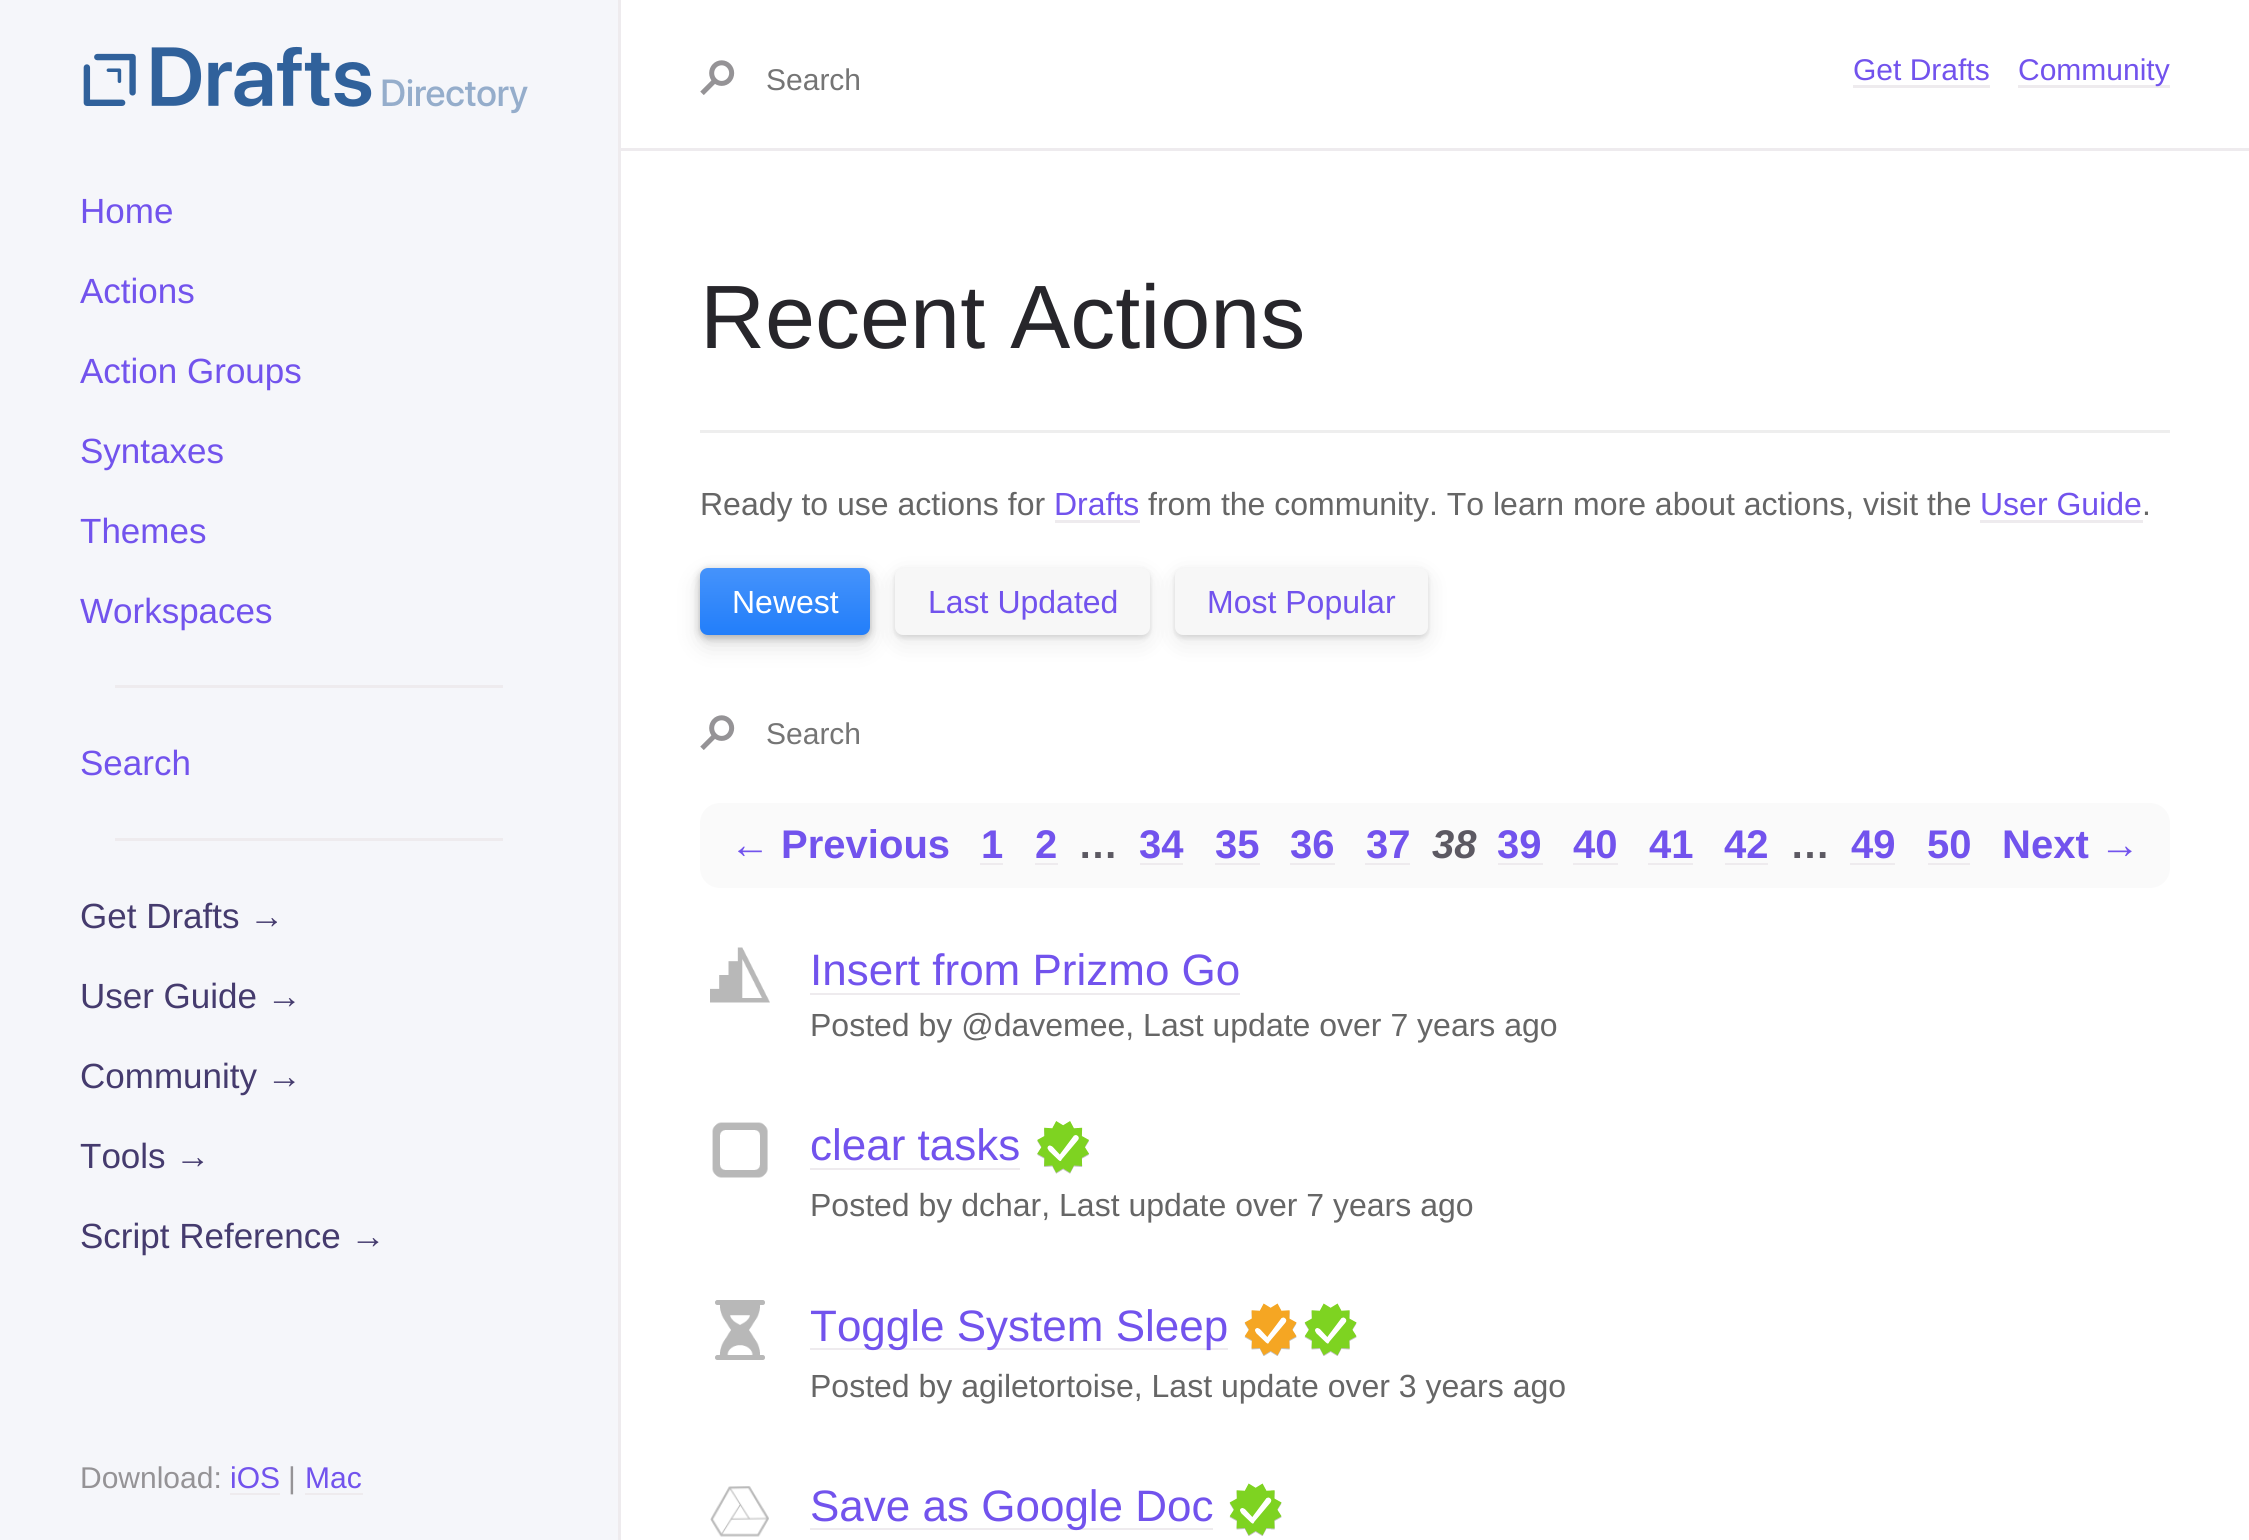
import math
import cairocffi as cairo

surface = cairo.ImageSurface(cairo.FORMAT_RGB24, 2249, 1540)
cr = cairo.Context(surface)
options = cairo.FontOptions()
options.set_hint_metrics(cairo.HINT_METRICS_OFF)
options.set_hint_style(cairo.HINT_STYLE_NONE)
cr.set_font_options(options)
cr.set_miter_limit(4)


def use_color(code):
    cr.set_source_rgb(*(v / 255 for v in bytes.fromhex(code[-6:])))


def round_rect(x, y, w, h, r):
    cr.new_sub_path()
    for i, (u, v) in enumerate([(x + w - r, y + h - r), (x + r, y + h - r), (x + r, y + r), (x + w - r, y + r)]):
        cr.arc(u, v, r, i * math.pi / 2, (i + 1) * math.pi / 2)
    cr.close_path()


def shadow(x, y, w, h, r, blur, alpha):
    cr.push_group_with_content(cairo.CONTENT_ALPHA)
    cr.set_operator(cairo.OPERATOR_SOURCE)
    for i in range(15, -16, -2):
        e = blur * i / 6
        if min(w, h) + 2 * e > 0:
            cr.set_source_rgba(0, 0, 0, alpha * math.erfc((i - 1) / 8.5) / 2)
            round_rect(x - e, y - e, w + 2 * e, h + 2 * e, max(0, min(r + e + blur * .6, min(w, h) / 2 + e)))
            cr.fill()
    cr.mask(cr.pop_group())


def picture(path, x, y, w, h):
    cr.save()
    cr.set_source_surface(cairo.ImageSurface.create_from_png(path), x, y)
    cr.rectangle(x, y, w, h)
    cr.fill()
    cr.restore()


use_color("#ffffff")
cr.paint()
use_color("#f5f6fa")
cr.rectangle(0, 0, 618, 1540)
cr.fill()
use_color("#eeebee")
cr.rectangle(618, 0, 3, 1540)
cr.fill()
picture("img1.png", 83, 46, 445, 68)
cr.select_font_face("Liberation Sans")
cr.set_font_size(35)
use_color("#7253ed")
cr.move_to(80, 223)
cr.show_text("Home")
cr.move_to(80, 303)
cr.show_text("Actions")
cr.move_to(80, 383)
cr.show_text("Action Groups")
cr.move_to(80, 463)
cr.show_text("Syntaxes")
cr.move_to(80, 543)
cr.show_text("Themes")
cr.move_to(80, 623)
cr.show_text("Workspaces")
use_color("#eeebee")
cr.rectangle(115, 685, 388, 3)
cr.fill()
use_color("#7253ed")
cr.move_to(80, 775)
cr.show_text("Search")
use_color("#eeebee")
cr.rectangle(115, 838, 388, 3)
cr.fill()
use_color("#453b6e")
cr.move_to(80, 928)
cr.show_text("Get Drafts →")
cr.move_to(80, 1008)
cr.show_text("User Guide →")
cr.move_to(80, 1088)
cr.show_text("Community →")
cr.move_to(80, 1168)
cr.show_text("Tools →")
cr.move_to(80, 1248)
cr.show_text("Script Reference →")
cr.set_font_size(30)
use_color("#959396")
cr.move_to(80, 1488)
cr.show_text("Download:")
use_color("#7253ed")
cr.move_to(230, 1488)
cr.show_text("iOS")
use_color("#eeebee")
cr.rectangle(230, 1493, 50, 2)
cr.fill()
use_color("#959396")
cr.move_to(288, 1488)
cr.show_text("|")
use_color("#7253ed")
cr.move_to(305, 1488)
cr.show_text("Mac")
use_color("#eeebee")
cr.rectangle(305, 1493, 58, 2)
cr.fill()
cr.rectangle(621, 148, 1628, 3)
cr.fill()
picture("img2.png", 700, 60, 35, 35)
use_color("#757575")
cr.move_to(766, 90)
cr.show_text("Search")
use_color("#7253ed")
cr.move_to(1853, 80)
cr.show_text("Get Drafts")
use_color("#eeebee")
cr.rectangle(1853, 85, 137, 3)
cr.fill()
cr.rectangle(2018, 85, 152, 3)
cr.fill()
use_color("#7253ed")
cr.move_to(2018, 80)
cr.show_text("Community")
use_color("#eeeeee")
cr.rectangle(700, 430, 1470, 3)
cr.fill()
cr.set_font_size(90)
use_color("#27262b")
cr.move_to(700, 348)
cr.show_text("Recent Actions")
cr.set_font_size(32)
use_color("#666666")
cr.move_to(700, 515)
cr.show_text("Ready to use actions for")
use_color("#7253ed")
cr.move_to(1054, 515)
cr.show_text("Drafts")
use_color("#eeebee")
cr.rectangle(1055, 520, 85, 3)
cr.fill()
use_color("#666666")
cr.move_to(1148, 515)
cr.show_text("from the community. To learn more about actions, visit the")
use_color("#7253ed")
cr.move_to(1980, 515)
cr.show_text("User Guide")
use_color("#eeebee")
cr.rectangle(1980, 520, 163, 3)
cr.fill()
use_color("#666666")
cr.move_to(2142, 515)
cr.show_text(".")
use_color("#000000")
shadow(700, 578, 170, 67, 8, 12.5, 0.12)
shadow(700, 570, 170, 68, 8, 4, 0.25)
gradient = cairo.LinearGradient(785, 568, 785, 635)
gradient.add_color_stop_rgba(0, 0.271, 0.576, 0.984, 1)
gradient.add_color_stop_rgba(1, 0.133, 0.494, 0.98, 1)
cr.set_source(gradient)
round_rect(700, 568, 170, 67, 8)
cr.fill()
use_color("#ffffff")
cr.move_to(732, 613)
cr.show_text("Newest")
use_color("#000000")
shadow(895, 575, 255, 68, 8, 12.5, 0.08)
shadow(895, 570, 255, 68, 8, 2.5, 0.12)
use_color("#f7f7f7")
round_rect(895, 568, 255, 67, 8)
cr.fill()
use_color("#7253ed")
cr.move_to(928, 613)
cr.show_text("Last Updated")
use_color("#000000")
shadow(1175, 575, 253, 68, 8, 12.5, 0.08)
shadow(1175, 570, 253, 68, 8, 2.5, 0.12)
use_color("#f7f7f7")
round_rect(1175, 568, 253, 67, 8)
cr.fill()
use_color("#7253ed")
cr.move_to(1207, 613)
cr.show_text("Most Popular")
picture("img2.png", 700, 715, 35, 35)
cr.set_font_size(30)
use_color("#757575")
cr.move_to(766, 744)
cr.show_text("Search")
use_color("#fafafa")
round_rect(700, 803, 1470, 85, 20)
cr.fill()
cr.select_font_face("Liberation Sans", cairo.FONT_SLANT_NORMAL, cairo.FONT_WEIGHT_BOLD)
cr.set_font_size(40)
use_color("#7253ed")
cr.move_to(730, 858)
cr.show_text("← Previous")
cr.move_to(981, 858)
cr.show_text("1")
use_color("#eeebee")
cr.rectangle(980, 863, 23, 2)
cr.fill()
use_color("#7253ed")
cr.move_to(1035, 858)
cr.show_text("2")
use_color("#eeebee")
cr.rectangle(1035, 863, 23, 2)
cr.fill()
use_color("#5c5962")
cr.move_to(1078, 858)
cr.show_text("…")
use_color("#7253ed")
cr.move_to(1139, 858)
cr.show_text("34")
use_color("#eeebee")
cr.rectangle(1140, 863, 43, 2)
cr.fill()
use_color("#7253ed")
cr.move_to(1215, 858)
cr.show_text("35")
use_color("#eeebee")
cr.rectangle(1215, 863, 45, 2)
cr.fill()
use_color("#7253ed")
cr.move_to(1290, 858)
cr.show_text("36")
use_color("#eeebee")
cr.rectangle(1290, 863, 45, 2)
cr.fill()
use_color("#7253ed")
cr.move_to(1366, 858)
cr.show_text("37")
use_color("#eeebee")
cr.rectangle(1365, 863, 45, 2)
cr.fill()
cr.select_font_face("Liberation Sans", cairo.FONT_SLANT_ITALIC, cairo.FONT_WEIGHT_BOLD)
use_color("#5c5962")
cr.move_to(1432, 858)
cr.show_text("38")
cr.select_font_face("Liberation Sans", cairo.FONT_SLANT_NORMAL, cairo.FONT_WEIGHT_BOLD)
use_color("#7253ed")
cr.move_to(1497, 858)
cr.show_text("39")
use_color("#eeebee")
cr.rectangle(1498, 863, 45, 2)
cr.fill()
use_color("#7253ed")
cr.move_to(1573, 858)
cr.show_text("40")
use_color("#eeebee")
cr.rectangle(1573, 863, 45, 2)
cr.fill()
use_color("#7253ed")
cr.move_to(1649, 858)
cr.show_text("41")
use_color("#eeebee")
cr.rectangle(1648, 863, 45, 2)
cr.fill()
use_color("#7253ed")
cr.move_to(1724, 858)
cr.show_text("42")
use_color("#eeebee")
cr.rectangle(1725, 863, 43, 2)
cr.fill()
use_color("#5c5962")
cr.move_to(1790, 858)
cr.show_text("…")
use_color("#7253ed")
cr.move_to(1851, 858)
cr.show_text("49")
use_color("#eeebee")
cr.rectangle(1850, 863, 45, 2)
cr.fill()
use_color("#7253ed")
cr.move_to(1927, 858)
cr.show_text("50")
use_color("#eeebee")
cr.rectangle(1928, 863, 42, 2)
cr.fill()
use_color("#7253ed")
cr.move_to(2002, 858)
cr.show_text("Next →")
picture("img3.png", 710, 947, 60, 56)
cr.select_font_face("Liberation Sans")
cr.set_font_size(44)
cr.move_to(810, 985)
cr.show_text("Insert from Prizmo Go")
use_color("#eeebee")
cr.rectangle(810, 993, 430, 2)
cr.fill()
cr.set_font_size(32)
use_color("#666666")
cr.move_to(810, 1036)
cr.show_text("Posted by @davemee, Last update over 7 years ago")
picture("img4.png", 712, 1122, 56, 56)
cr.set_font_size(44)
use_color("#7253ed")
cr.move_to(810, 1160)
cr.show_text("clear tasks")
use_color("#eeebee")
cr.rectangle(810, 1168, 210, 2)
cr.fill()
picture("img5.png", 1037, 1121, 52, 53)
cr.set_font_size(32)
use_color("#666666")
cr.move_to(810, 1216)
cr.show_text("Posted by dchar, Last update over 7 years ago")
picture("img6.png", 715, 1300, 50, 60)
use_color("#eeebee")
cr.rectangle(810, 1348, 418, 2)
cr.fill()
cr.set_font_size(44)
use_color("#7253ed")
cr.move_to(810, 1341)
cr.show_text("Toggle System Sleep")
picture("img7.png", 1244, 1303, 53, 53)
picture("img8.png", 1304, 1303, 53, 53)
cr.set_font_size(32)
use_color("#666666")
cr.move_to(810, 1397)
cr.show_text("Posted by agiletortoise, Last update over 3 years ago")
picture("img9.png", 710, 1486, 59, 51)
use_color("#eeebee")
cr.rectangle(810, 1528, 403, 2)
cr.fill()
cr.set_font_size(44)
use_color("#7253ed")
cr.move_to(810, 1521)
cr.show_text("Save as Google Doc")
picture("img10.png", 1229, 1483, 53, 53)
surface.write_to_png("result.png")
